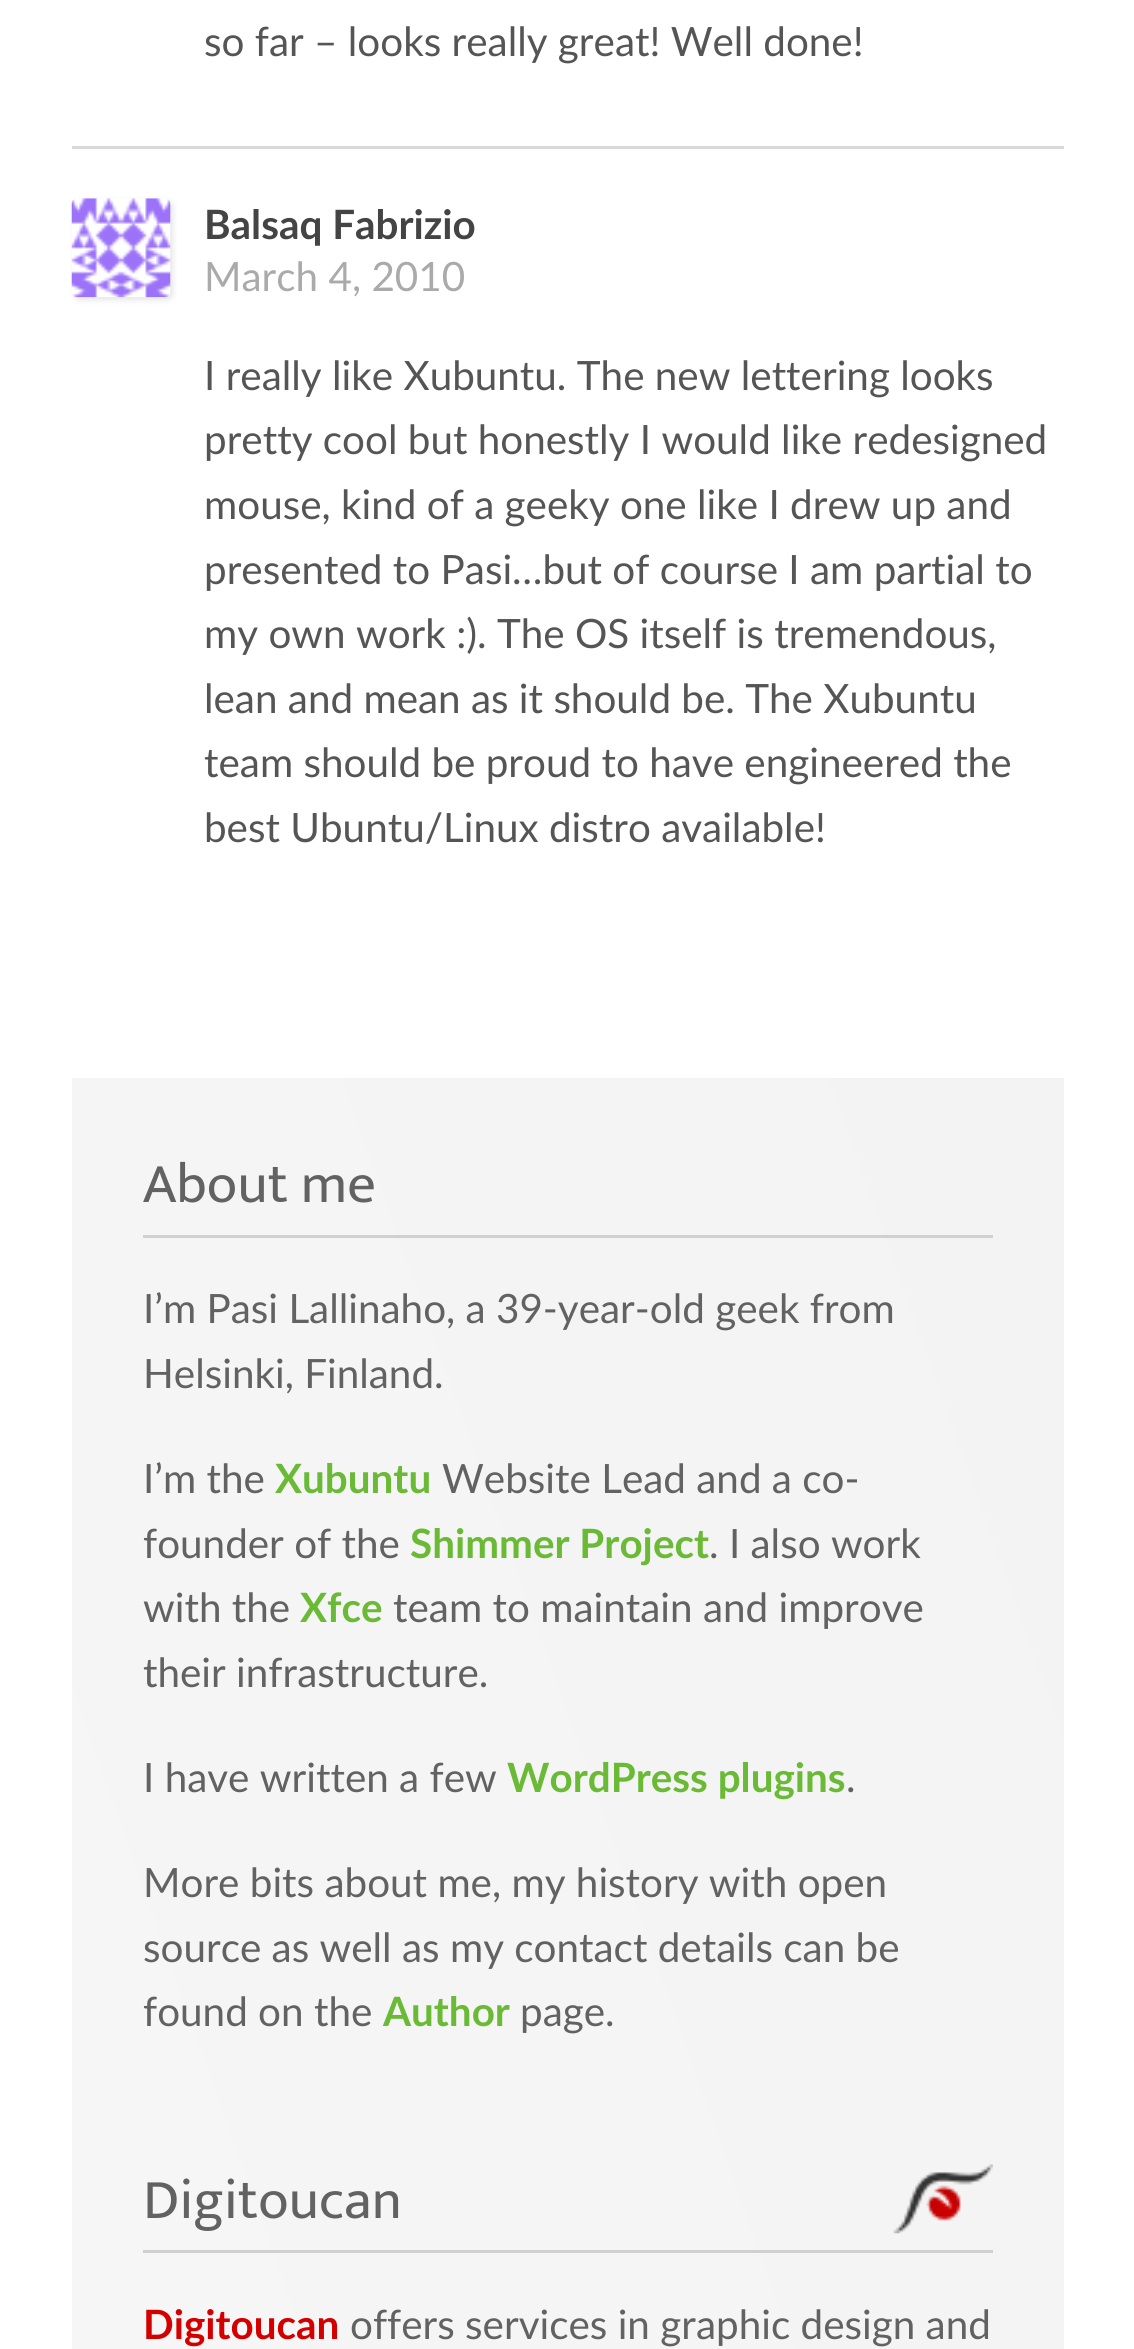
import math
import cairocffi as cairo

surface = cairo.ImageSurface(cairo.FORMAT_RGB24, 1134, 2349)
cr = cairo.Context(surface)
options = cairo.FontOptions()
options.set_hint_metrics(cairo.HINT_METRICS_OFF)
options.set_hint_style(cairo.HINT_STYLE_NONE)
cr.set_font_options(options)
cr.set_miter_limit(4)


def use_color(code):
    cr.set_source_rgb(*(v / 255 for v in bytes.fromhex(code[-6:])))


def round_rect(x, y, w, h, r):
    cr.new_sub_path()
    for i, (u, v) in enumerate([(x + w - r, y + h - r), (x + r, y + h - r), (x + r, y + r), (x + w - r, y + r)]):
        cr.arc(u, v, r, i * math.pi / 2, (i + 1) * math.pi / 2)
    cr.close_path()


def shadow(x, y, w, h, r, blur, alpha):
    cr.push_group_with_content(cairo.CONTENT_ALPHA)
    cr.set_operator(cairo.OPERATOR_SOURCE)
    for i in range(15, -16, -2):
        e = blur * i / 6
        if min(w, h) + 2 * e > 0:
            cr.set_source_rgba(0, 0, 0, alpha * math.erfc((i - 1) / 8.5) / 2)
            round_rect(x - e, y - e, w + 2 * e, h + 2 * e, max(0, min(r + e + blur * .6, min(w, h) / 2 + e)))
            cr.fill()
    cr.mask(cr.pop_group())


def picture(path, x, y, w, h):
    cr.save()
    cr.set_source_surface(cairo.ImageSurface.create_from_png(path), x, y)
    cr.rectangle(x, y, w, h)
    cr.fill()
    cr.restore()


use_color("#ffffff")
cr.paint()
cr.select_font_face("Lato")
cr.set_font_size(40.4)
use_color("#555555")
cr.move_to(204, 56)
cr.show_text("so far – looks really great! Well done!")
use_color("#d9d9d9")
cr.rectangle(72, 146, 992, 3)
cr.fill()
use_color("#000000")
shadow(74, 201, 99, 99, 6, 3, 0.1)
picture("img1.png", 71, 198, 100, 100)
cr.select_font_face("Lato", cairo.FONT_SLANT_NORMAL, cairo.FONT_WEIGHT_BOLD)
use_color("#444444")
cr.move_to(204, 239)
cr.show_text("Balsaq Fabrizio")
cr.select_font_face("Lato")
use_color("#aaaaaa")
cr.move_to(204, 291)
cr.show_text("March 4, 2010")
use_color("#555555")
cr.move_to(204, 390)
cr.show_text("I really like Xubuntu. The new lettering looks")
cr.move_to(204, 454)
cr.show_text("pretty cool but honestly I would like redesigned")
cr.move_to(204, 519)
cr.show_text("mouse, kind of a geeky one like I drew up and")
cr.move_to(204, 584)
cr.show_text("presented to Pasi…but of course I am partial to")
cr.move_to(204, 648)
cr.show_text("my own work :). The OS itself is tremendous,")
cr.move_to(204, 713)
cr.show_text("lean and mean as it should be. The Xubuntu")
cr.move_to(204, 777)
cr.show_text("team should be proud to have engineered the")
cr.move_to(204, 842)
cr.show_text("best Ubuntu/Linux distro available!")
gradient = cairo.LinearGradient(-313, 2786, 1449, 2159)
gradient.add_color_stop_rgba(0, 0.969, 0.969, 0.969, 1)
gradient.add_color_stop_rgba(1, 0.953, 0.953, 0.953, 1)
cr.set_source(gradient)
cr.rectangle(72, 1078, 992, 1271)
cr.fill()
use_color("#d0d0d0")
cr.rectangle(143, 1235, 850, 3)
cr.fill()
cr.select_font_face("Ek Mukta")
cr.set_font_size(56.5)
use_color("#626262")
cr.move_to(143, 1202)
cr.show_text("About me")
cr.select_font_face("Lato")
cr.set_font_size(40.4)
cr.move_to(143, 1323)
cr.show_text("I’m Pasi Lallinaho, a 39-year-old geek from")
cr.move_to(143, 1388)
cr.show_text("Helsinki, Finland.")
cr.move_to(143, 1493)
cr.show_text("I’m the")
cr.select_font_face("Lato", cairo.FONT_SLANT_NORMAL, cairo.FONT_WEIGHT_BOLD)
use_color("#6aba36")
cr.move_to(275, 1493)
cr.show_text("Xubuntu")
cr.select_font_face("Lato")
use_color("#626262")
cr.move_to(442, 1493)
cr.show_text("Website Lead and a co-")
cr.move_to(143, 1558)
cr.show_text("founder of the")
cr.select_font_face("Lato", cairo.FONT_SLANT_NORMAL, cairo.FONT_WEIGHT_BOLD)
use_color("#6aba36")
cr.move_to(410, 1558)
cr.show_text("Shimmer Project")
cr.select_font_face("Lato")
use_color("#626262")
cr.move_to(709, 1558)
cr.show_text(". I also work")
cr.move_to(143, 1622)
cr.show_text("with the")
cr.select_font_face("Lato", cairo.FONT_SLANT_NORMAL, cairo.FONT_WEIGHT_BOLD)
use_color("#6aba36")
cr.move_to(300, 1622)
cr.show_text("Xfce")
cr.select_font_face("Lato")
use_color("#626262")
cr.move_to(393, 1622)
cr.show_text("team to maintain and improve")
cr.move_to(143, 1687)
cr.show_text("their infrastructure.")
cr.move_to(143, 1792)
cr.show_text("I have written a few")
cr.select_font_face("Lato", cairo.FONT_SLANT_NORMAL, cairo.FONT_WEIGHT_BOLD)
use_color("#6aba36")
cr.move_to(507, 1792)
cr.show_text("WordPress plugins")
cr.select_font_face("Lato")
use_color("#626262")
cr.move_to(846, 1792)
cr.show_text(".")
cr.move_to(143, 1897)
cr.show_text("More bits about me, my history with open")
cr.move_to(143, 1962)
cr.show_text("source as well as my contact details can be")
cr.move_to(143, 2026)
cr.show_text("found on the")
cr.select_font_face("Lato", cairo.FONT_SLANT_NORMAL, cairo.FONT_WEIGHT_BOLD)
use_color("#6aba36")
cr.move_to(383, 2026)
cr.show_text("Author")
cr.select_font_face("Lato")
use_color("#626262")
cr.move_to(520, 2026)
cr.show_text("page.")
picture("img2.png", 893, 2164, 100, 70)
use_color("#d0d0d0")
cr.rectangle(143, 2250, 850, 3)
cr.fill()
cr.select_font_face("Ek Mukta")
cr.set_font_size(56.5)
use_color("#626262")
cr.move_to(143, 2218)
cr.show_text("Digitoucan")
cr.select_font_face("Lato", cairo.FONT_SLANT_NORMAL, cairo.FONT_WEIGHT_BOLD)
cr.set_font_size(40.4)
use_color("#d40000")
cr.move_to(143, 2339)
cr.show_text("Digitoucan")
cr.select_font_face("Lato")
use_color("#626262")
cr.move_to(350, 2339)
cr.show_text("offers services in graphic design and")
surface.write_to_png("result.png")
